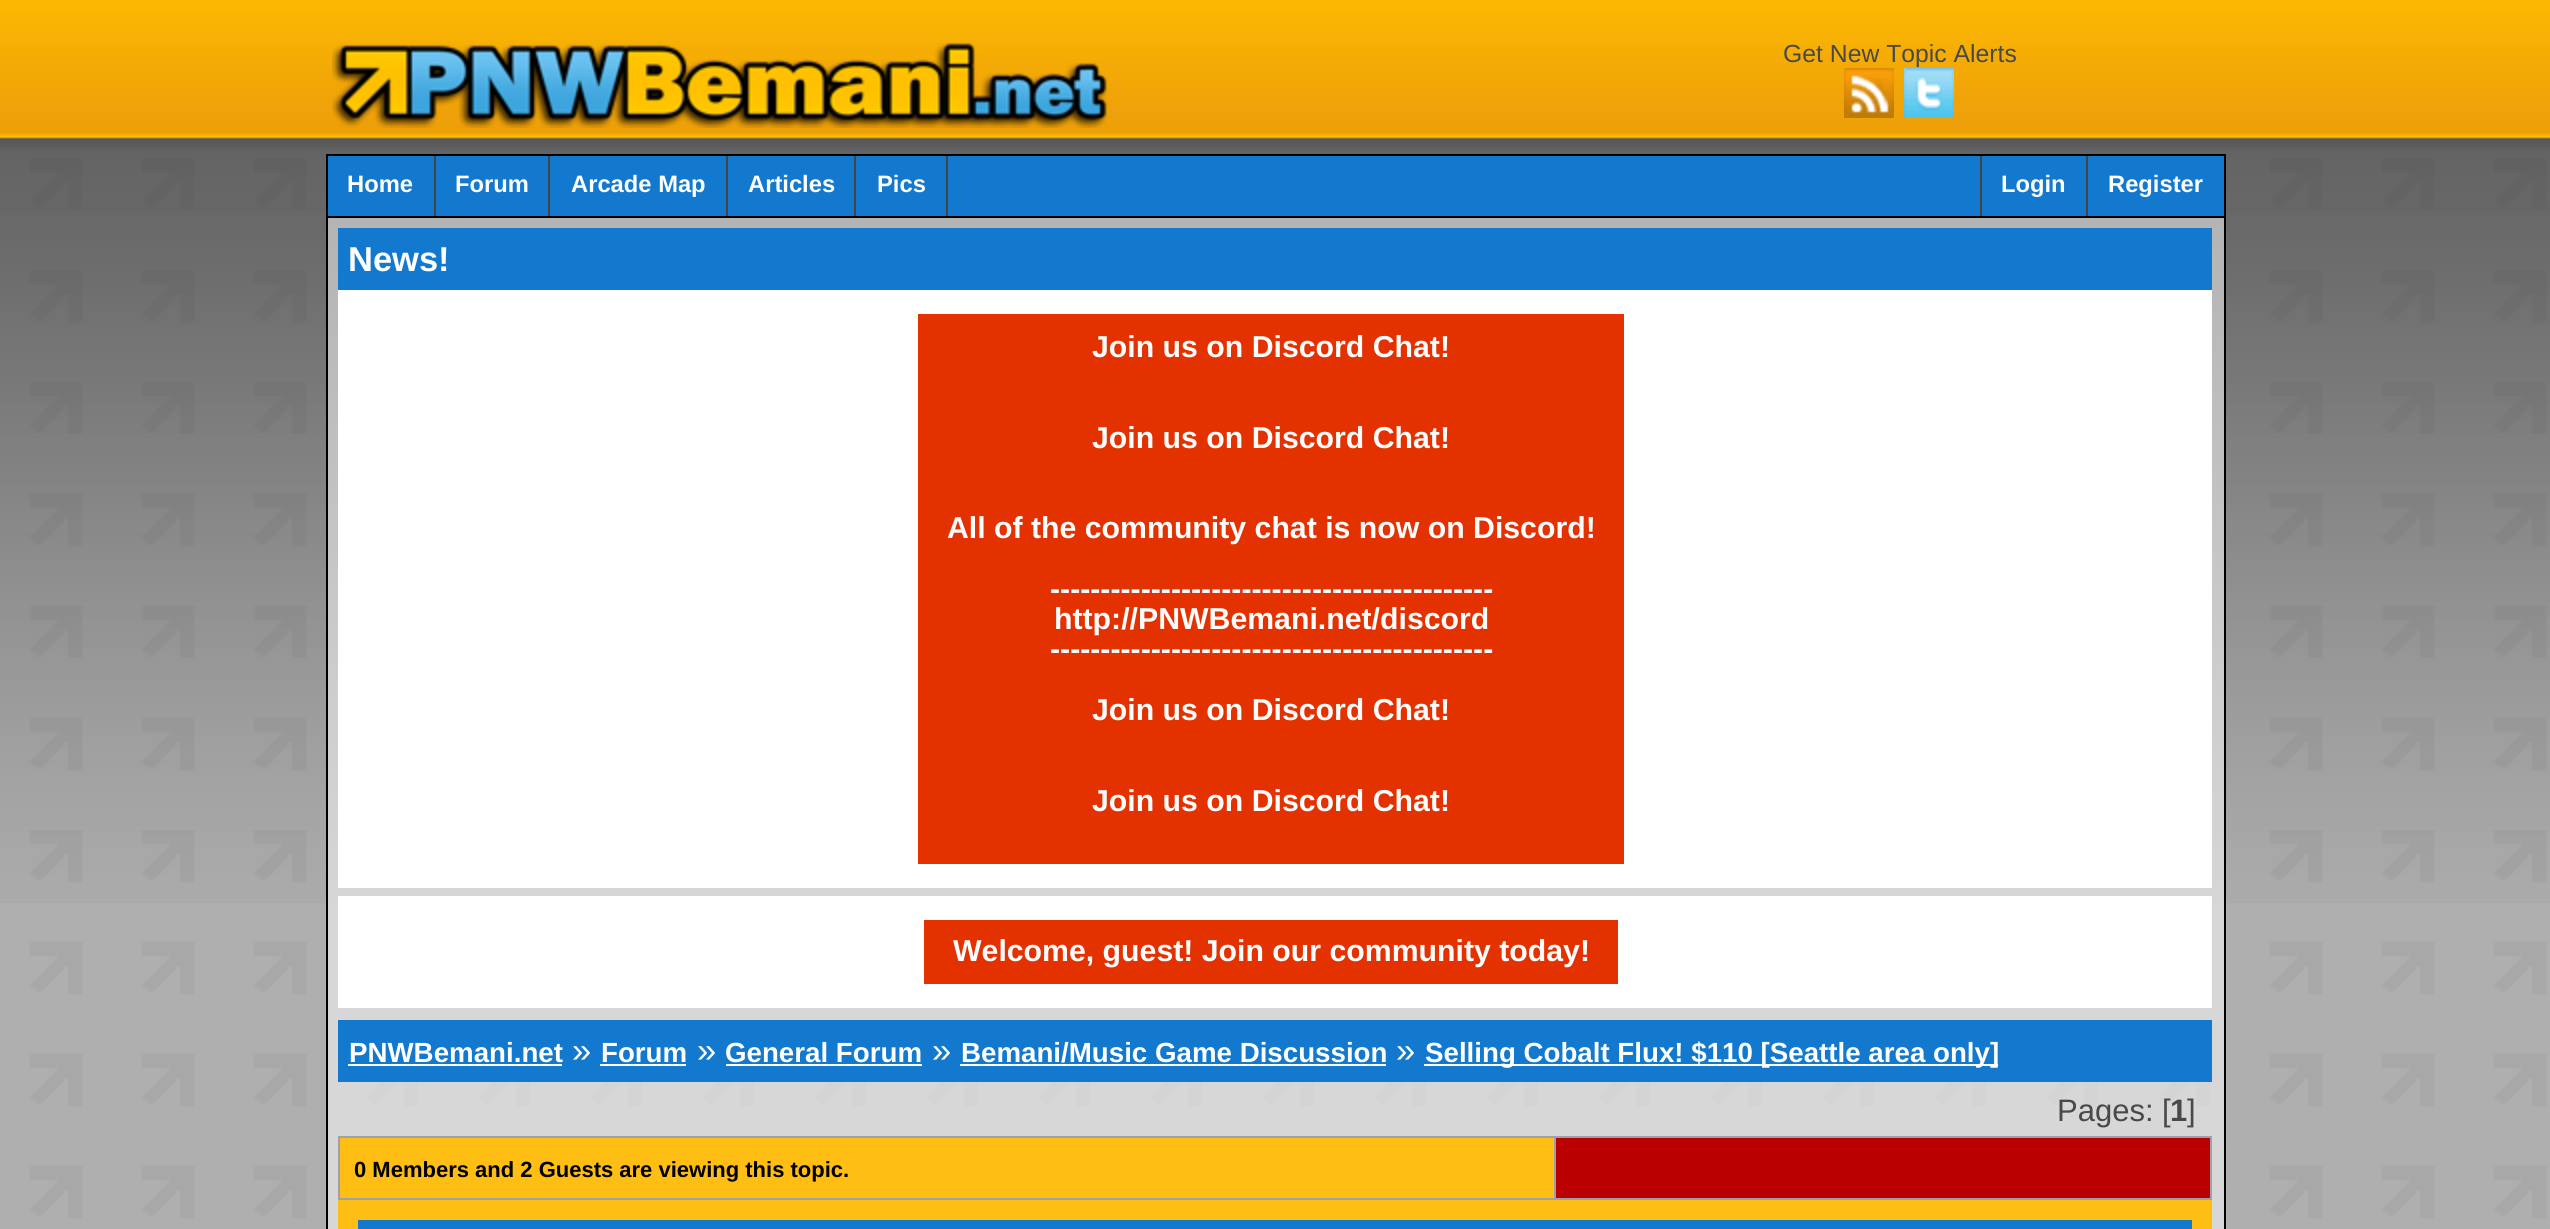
import math
import cairocffi as cairo

surface = cairo.ImageSurface(cairo.FORMAT_RGB24, 2550, 1229)
cr = cairo.Context(surface)
options = cairo.FontOptions()
options.set_hint_metrics(cairo.HINT_METRICS_OFF)
options.set_hint_style(cairo.HINT_STYLE_NONE)
cr.set_font_options(options)
cr.set_miter_limit(4)


def use_color(code):
    cr.set_source_rgb(*(v / 255 for v in bytes.fromhex(code[-6:])))


def picture(path, x, y, w, h):
    cr.save()
    cr.set_source_surface(cairo.ImageSurface.create_from_png(path), x, y)
    cr.rectangle(x, y, w, h)
    cr.fill()
    cr.restore()


use_color("#ffffff")
cr.paint()
picture("img1.png", 0, 137, 2550, 1092)
picture("img2.png", 0, 0, 2550, 903)
picture("img3.png", 332, 42, 775, 86)
cr.select_font_face("Liberation Sans")
cr.set_font_size(24.75)
use_color("#494949")
cr.move_to(1783, 62)
cr.show_text("Get New Topic Alerts")
picture("img4.png", 1844, 68, 50, 50)
picture("img5.png", 1904, 68, 50, 50)
cr.set_source_rgba(1, 1, 1, 0.5)
cr.rectangle(328, 218, 1896, 1011)
cr.fill()
use_color("#000000")
cr.rectangle(2224, 154, 2, 1075)
cr.fill()
cr.rectangle(326, 154, 2, 1075)
cr.fill()
use_color("#1379ce")
cr.rectangle(328, 156, 1896, 60)
cr.fill()
use_color("#000000")
cr.rectangle(328, 154, 1896, 2)
cr.fill()
cr.rectangle(328, 216, 1896, 2)
cr.fill()
use_color("#444444")
cr.rectangle(434, 156, 2, 60)
cr.fill()
cr.select_font_face("Liberation Sans", cairo.FONT_SLANT_NORMAL, cairo.FONT_WEIGHT_BOLD)
cr.set_font_size(23.75)
use_color("#fdfdfd")
cr.move_to(347, 192)
cr.show_text("Home")
use_color("#444444")
cr.rectangle(548, 156, 2, 60)
cr.fill()
use_color("#fdfdfd")
cr.move_to(455, 192)
cr.show_text("Forum")
use_color("#444444")
cr.rectangle(726, 156, 2, 60)
cr.fill()
use_color("#fdfdfd")
cr.move_to(571, 192)
cr.show_text("Arcade Map")
use_color("#444444")
cr.rectangle(854, 156, 2, 60)
cr.fill()
use_color("#fdfdfd")
cr.move_to(748, 192)
cr.show_text("Articles")
use_color("#444444")
cr.rectangle(946, 156, 2, 60)
cr.fill()
use_color("#fdfdfd")
cr.move_to(877, 192)
cr.show_text("Pics")
use_color("#444444")
cr.rectangle(1980, 156, 2, 60)
cr.fill()
use_color("#fdfdfd")
cr.move_to(2001, 192)
cr.show_text("Login")
use_color("#444444")
cr.rectangle(2086, 156, 2, 60)
cr.fill()
use_color("#fdfdfd")
cr.move_to(2108, 192)
cr.show_text("Register")
use_color("#1379ce")
cr.rectangle(338, 228, 1874, 62)
cr.fill()
cr.set_font_size(34.5)
use_color("#fdfdfd")
cr.move_to(348, 271)
cr.show_text("News!")
use_color("#ffffff")
cr.rectangle(338, 290, 1874, 598)
cr.fill()
use_color("#e33100")
cr.rectangle(918, 314, 706, 550)
cr.fill()
cr.set_font_size(30.25)
use_color("#fdfdfd")
cr.move_to(1092, 357)
cr.show_text("Join us on Discord Chat!")
cr.move_to(1092, 448)
cr.show_text("Join us on Discord Chat!")
cr.move_to(947, 538)
cr.show_text("All of the community chat is now on Discord!")
cr.move_to(1050, 599)
cr.show_text("--------------------------------------------")
cr.move_to(1054, 629)
cr.show_text("http://PNWBemani.net/discord")
cr.move_to(1050, 659)
cr.show_text("--------------------------------------------")
cr.move_to(1092, 720)
cr.show_text("Join us on Discord Chat!")
cr.move_to(1092, 811)
cr.show_text("Join us on Discord Chat!")
use_color("#ffffff")
cr.rectangle(338, 896, 1874, 112)
cr.fill()
use_color("#e33100")
cr.rectangle(924, 920, 694, 64)
cr.fill()
use_color("#fdfdfd")
cr.move_to(953, 961)
cr.show_text("Welcome, guest! Join our community today!")
use_color("#1379ce")
cr.rectangle(338, 1020, 1874, 62)
cr.fill()
cr.set_font_size(27.7)
use_color("#fdfdfd")
cr.move_to(349, 1062)
cr.show_text("PNWBemani.net")
use_color("#ffffff")
cr.rectangle(348, 1064, 214, 2)
cr.fill()
cr.select_font_face("Liberation Sans")
cr.set_font_size(34.5)
use_color("#fdfdfd")
cr.move_to(572, 1062)
cr.show_text("»")
cr.select_font_face("Liberation Sans", cairo.FONT_SLANT_NORMAL, cairo.FONT_WEIGHT_BOLD)
cr.set_font_size(27.7)
cr.move_to(601, 1062)
cr.show_text("Forum")
use_color("#ffffff")
cr.rectangle(600, 1064, 86, 2)
cr.fill()
cr.select_font_face("Liberation Sans")
cr.set_font_size(34.5)
use_color("#fdfdfd")
cr.move_to(697, 1062)
cr.show_text("»")
cr.select_font_face("Liberation Sans", cairo.FONT_SLANT_NORMAL, cairo.FONT_WEIGHT_BOLD)
cr.set_font_size(27.7)
cr.move_to(725, 1062)
cr.show_text("General Forum")
use_color("#ffffff")
cr.rectangle(726, 1064, 196, 2)
cr.fill()
cr.select_font_face("Liberation Sans")
cr.set_font_size(34.5)
use_color("#fdfdfd")
cr.move_to(932, 1062)
cr.show_text("»")
cr.select_font_face("Liberation Sans", cairo.FONT_SLANT_NORMAL, cairo.FONT_WEIGHT_BOLD)
cr.set_font_size(27.7)
cr.move_to(961, 1062)
cr.show_text("Bemani/Music Game Discussion")
use_color("#ffffff")
cr.rectangle(960, 1064, 426, 2)
cr.fill()
cr.select_font_face("Liberation Sans")
cr.set_font_size(34.5)
use_color("#fdfdfd")
cr.move_to(1396, 1062)
cr.show_text("»")
use_color("#ffffff")
cr.rectangle(1424, 1064, 574, 2)
cr.fill()
cr.select_font_face("Liberation Sans", cairo.FONT_SLANT_NORMAL, cairo.FONT_WEIGHT_BOLD)
cr.set_font_size(27.7)
use_color("#fdfdfd")
cr.move_to(1425, 1062)
cr.show_text("Selling Cobalt Flux! $110 [Seattle area only]")
cr.select_font_face("Liberation Sans")
cr.set_font_size(31)
use_color("#494949")
cr.move_to(2057, 1121)
cr.show_text("Pages: [")
cr.select_font_face("Liberation Sans", cairo.FONT_SLANT_NORMAL, cairo.FONT_WEIGHT_BOLD)
cr.move_to(2170, 1121)
cr.show_text("1")
cr.select_font_face("Liberation Sans")
cr.move_to(2187, 1121)
cr.show_text("]")
use_color("#a0a0aa")
cr.rectangle(338, 1136, 1874, 64)
cr.fill()
use_color("#febe13")
cr.rectangle(340, 1138, 1214, 60)
cr.fill()
cr.select_font_face("Liberation Sans", cairo.FONT_SLANT_NORMAL, cairo.FONT_WEIGHT_BOLD)
cr.set_font_size(22)
use_color("#000000")
cr.move_to(354, 1177)
cr.show_text("0 Members and 2 Guests are viewing this topic.")
use_color("#ba0000")
cr.rectangle(1556, 1138, 654, 60)
cr.fill()
cr.rectangle(348, 1210, 1854, 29)
use_color("#febe13")
cr.set_line_width(20)
cr.stroke()
use_color("#1379ce")
cr.rectangle(358, 1220, 1834, 9)
cr.fill()
surface.write_to_png("result.png")
